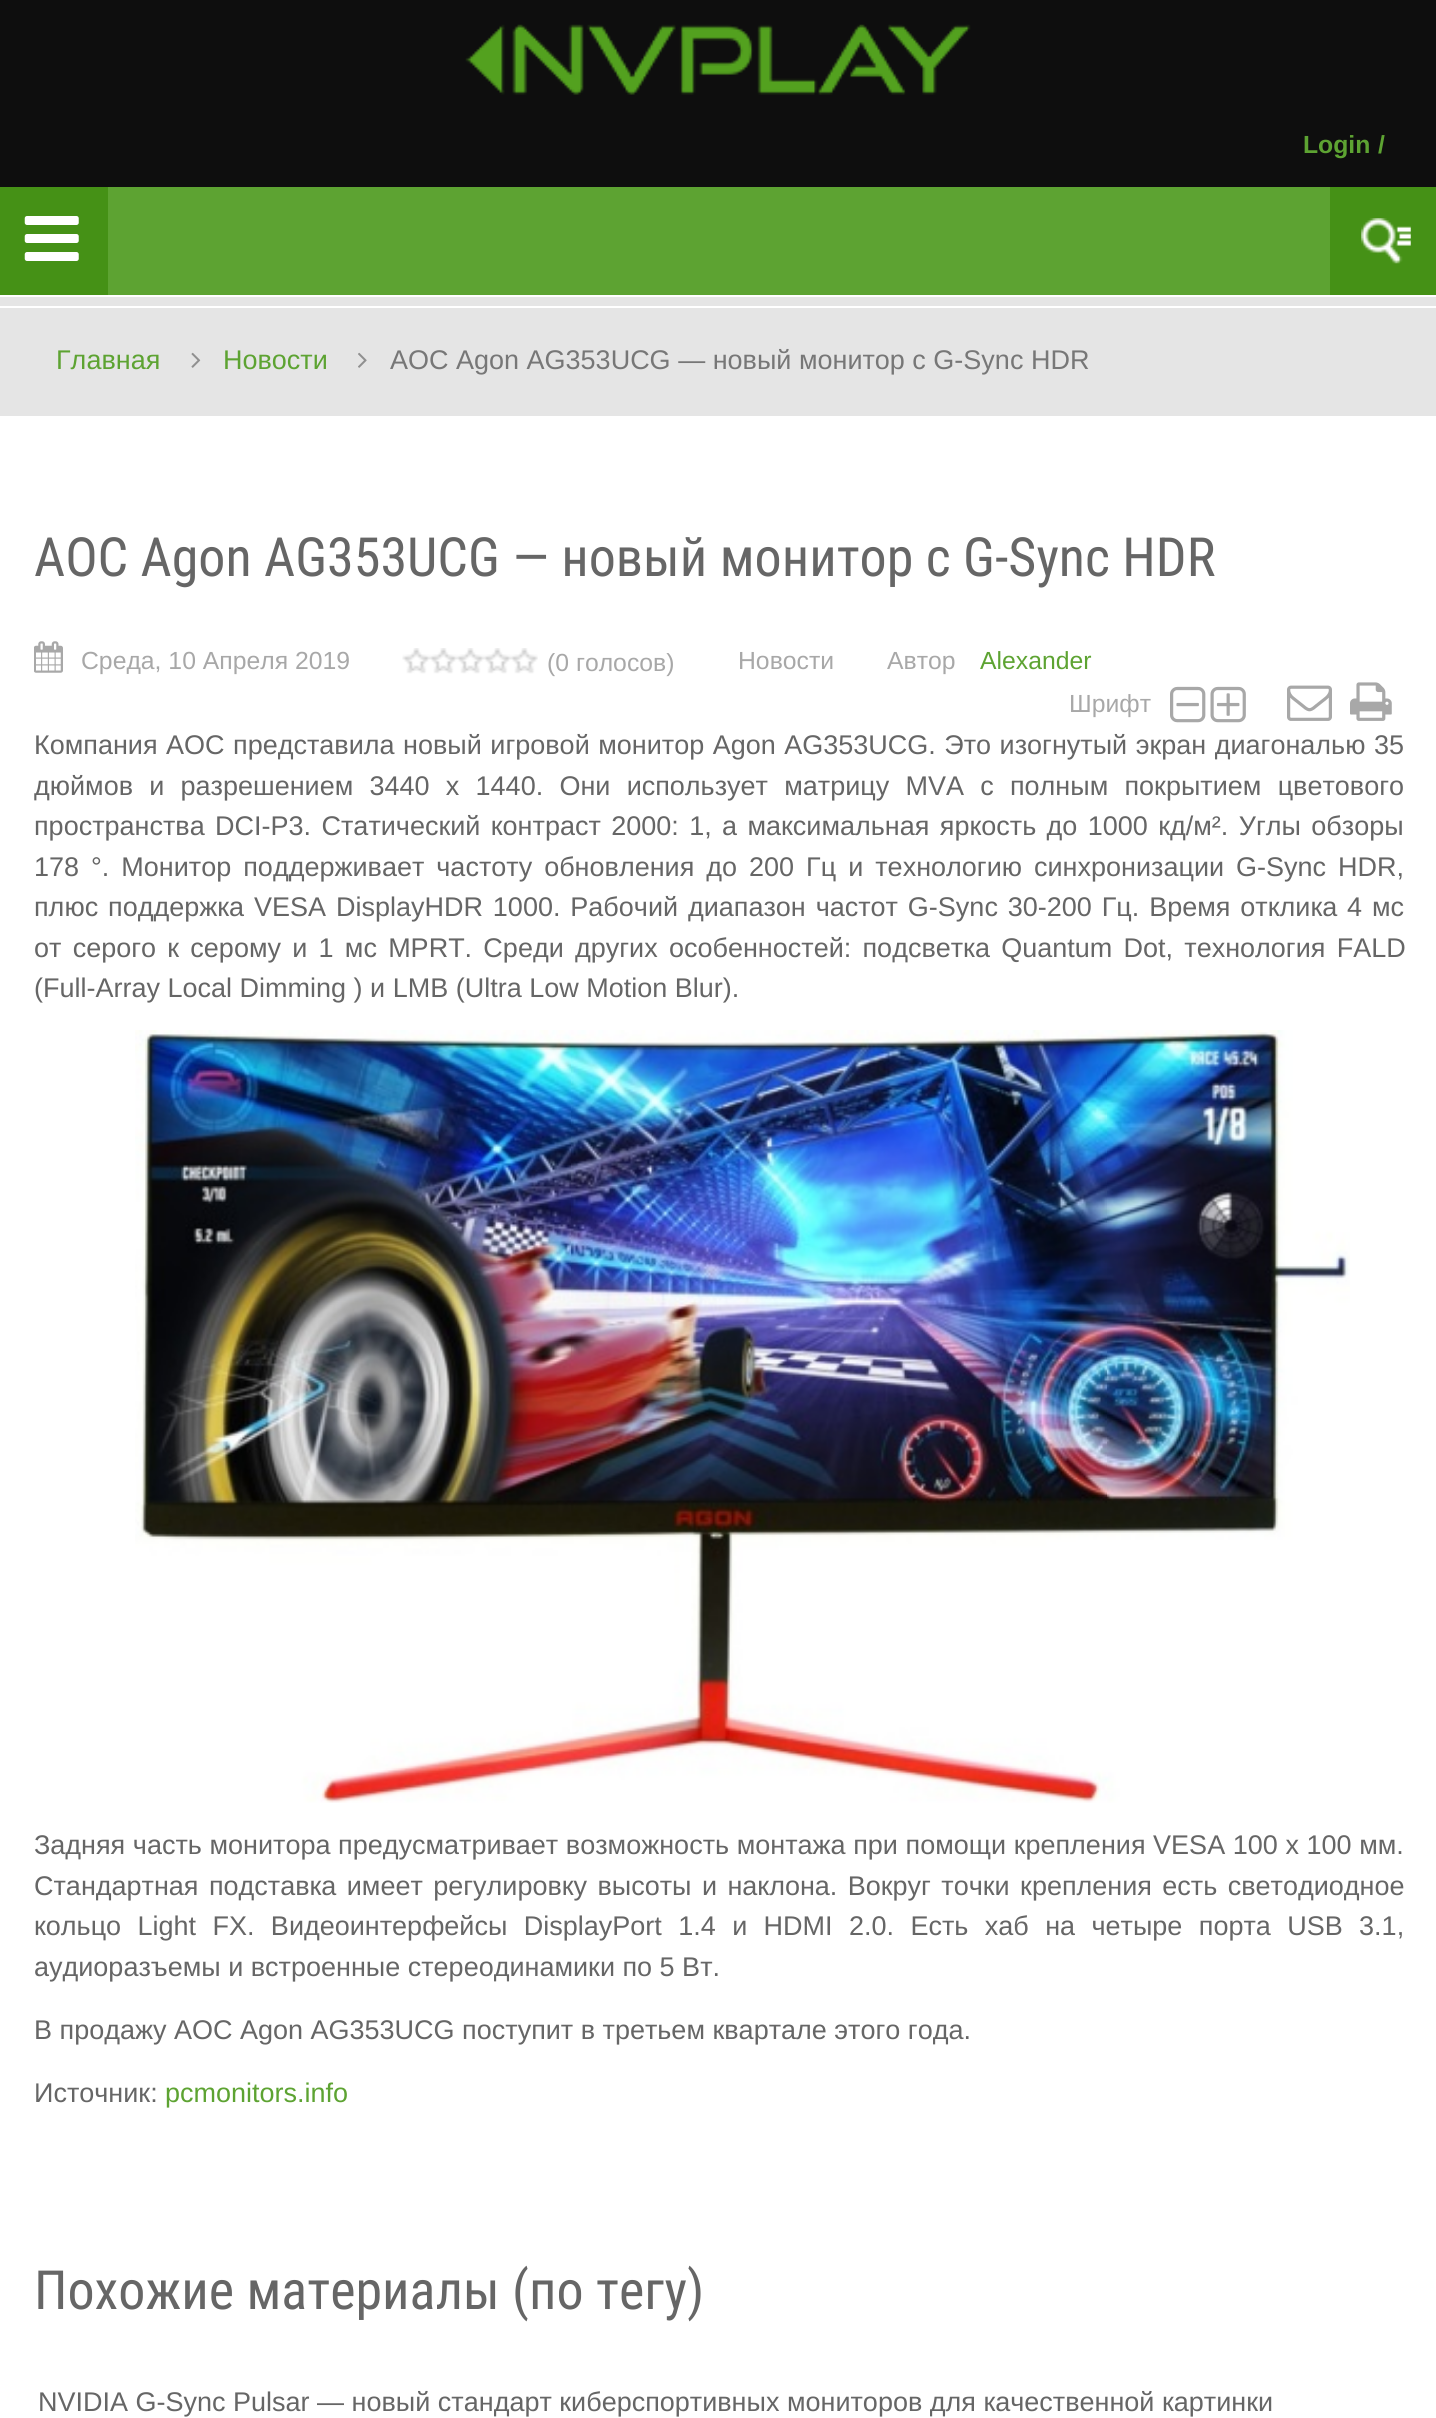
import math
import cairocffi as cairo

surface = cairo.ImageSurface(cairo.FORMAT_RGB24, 1436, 2418)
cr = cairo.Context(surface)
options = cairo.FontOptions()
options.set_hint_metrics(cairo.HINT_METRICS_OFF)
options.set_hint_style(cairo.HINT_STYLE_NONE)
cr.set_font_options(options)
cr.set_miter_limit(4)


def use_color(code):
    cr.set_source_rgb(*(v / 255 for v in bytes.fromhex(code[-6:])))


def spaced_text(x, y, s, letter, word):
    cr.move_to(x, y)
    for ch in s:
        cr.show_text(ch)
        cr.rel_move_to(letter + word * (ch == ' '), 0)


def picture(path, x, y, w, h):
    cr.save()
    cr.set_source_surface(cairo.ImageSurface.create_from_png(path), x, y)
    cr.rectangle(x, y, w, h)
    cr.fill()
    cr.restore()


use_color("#ffffff")
cr.paint()
use_color("#0e0e0e")
cr.rectangle(0, 0, 1436, 187)
cr.fill()
picture("img1.png", 465, 24, 506, 71)
cr.select_font_face("Liberation Sans", cairo.FONT_SLANT_NORMAL, cairo.FONT_WEIGHT_BOLD)
cr.set_font_size(24.75)
use_color("#5da332")
cr.move_to(1303, 153)
cr.show_text("Login")
cr.move_to(1378, 153)
cr.show_text("/")
picture("img2.png", 0, 295, 1436, 2)
use_color("#e5e5e5")
cr.rectangle(0, 297, 1436, 9)
cr.fill()
use_color("#5da332")
cr.rectangle(108, 187, 1222, 108)
cr.fill()
use_color("#459116")
cr.rectangle(0, 187, 108, 108)
cr.fill()
picture("img3.png", 24, 216, 55, 45)
cr.rectangle(1330, 187, 106, 108)
cr.fill()
picture("img4.png", 1361, 218, 50, 46)
use_color("#e5e5e5")
cr.rectangle(0, 308, 1436, 108)
cr.fill()
cr.select_font_face("Liberation Sans")
cr.set_font_size(27)
use_color("#5da332")
cr.move_to(56, 369)
cr.show_text("Главная")
picture("img5.png", 191, 352, 10, 16)
cr.move_to(223, 369)
cr.show_text("Новости")
picture("img6.png", 358, 352, 9, 16)
use_color("#777777")
cr.move_to(390, 369)
cr.show_text("AOC Agon AG353UCG — новый монитор с G-Sync HDR")
cr.select_font_face("Roboto Condensed")
cr.set_font_size(54)
use_color("#666666")
cr.move_to(34, 576)
cr.show_text("AOC Agon AG353UCG — новый монитор с G-Sync HDR")
picture("img7.png", 34, 641, 29, 32)
cr.select_font_face("Liberation Sans")
cr.set_font_size(24.75)
use_color("#a8a8a8")
cr.move_to(81, 669)
cr.show_text("Среда, 10 Апреля 2019")
picture("img8.png", 402, 648, 136, 26)
cr.move_to(547, 671)
cr.show_text("(0 голосов)")
cr.move_to(738, 669)
cr.show_text("Новости")
cr.move_to(887, 669)
cr.show_text("Автор")
use_color("#5da332")
cr.move_to(980, 669)
cr.show_text("Alexander")
use_color("#a8a8a8")
cr.move_to(1069, 712)
cr.show_text("Шрифт")
picture("img9.png", 1170, 686, 36, 37)
picture("img10.png", 1210, 686, 36, 37)
picture("img11.png", 1287, 685, 45, 36)
picture("img12.png", 1350, 682, 42, 39)
cr.set_font_size(27)
use_color("#666666")
spaced_text(34, 754, "Компания AOC представила новый игровой монитор Agon AG353UCG. Это изогнутый экран диагональю 35", 0, 1)
spaced_text(34, 795, "дюймов и разрешением 3440 x 1440. Они использует матрицу MVA с полным покрытием цветового", 0, 8.75)
spaced_text(34, 835, "пространства DCI-P3. Статический контраст 2000: 1, а максимальная яркость до 1000 кд/м². Углы обзоры", 0, 2.9)
spaced_text(34, 876, "178 °. Монитор поддерживает частоту обновления до 200 Гц и технологию синхронизации G-Sync HDR,", 0, 4.5)
spaced_text(34, 916, "плюс поддержка VESA DisplayHDR 1000. Рабочий диапазон частот G-Sync 30-200 Гц. Время отклика 4 мс", 0, 2.4)
spaced_text(34, 957, "от серого к серому и 1 мс MPRT. Среди других особенностей: подсветка Quantum Dot, технология FALD", 0, 3.75)
cr.move_to(34, 997)
cr.show_text("(Full-Array Local Dimming ) и LMB (Ultra Low Motion Blur).")
picture("img13.png", 135, 1030, 1215, 773)
spaced_text(34, 1854, "Задняя часть монитора предусматривает возможность монтажа при помощи крепления VESA 100 x 100 мм.", 0, 0.1)
spaced_text(34, 1895, "Стандартная подставка имеет регулировку высоты и наклона. Вокруг точки крепления есть светодиодное", 0, 2.9)
spaced_text(34, 1935, "кольцо Light FX. Видеоинтерфейсы DisplayPort 1.4 и HDMI 2.0. Есть хаб на четыре порта USB 3.1,", 0, 8.9)
cr.move_to(34, 1976)
cr.show_text("аудиоразъемы и встроенные стереодинамики по 5 Вт.")
cr.move_to(34, 2039)
cr.show_text("В продажу AOC Agon AG353UCG поступит в третьем квартале этого года.")
cr.move_to(34, 2102)
cr.show_text("Источник:")
use_color("#5da332")
cr.move_to(165, 2102)
cr.show_text("pcmonitors.info")
cr.select_font_face("Roboto Condensed")
cr.set_font_size(54)
use_color("#666666")
cr.move_to(34, 2309)
cr.show_text("Похожие материалы (по тегу)")
cr.select_font_face("Liberation Sans")
cr.set_font_size(27)
cr.move_to(38, 2411)
cr.show_text("NVIDIA G-Sync Pulsar — новый стандарт киберспортивных мониторов для качественной картинки")
surface.write_to_png("result.png")
